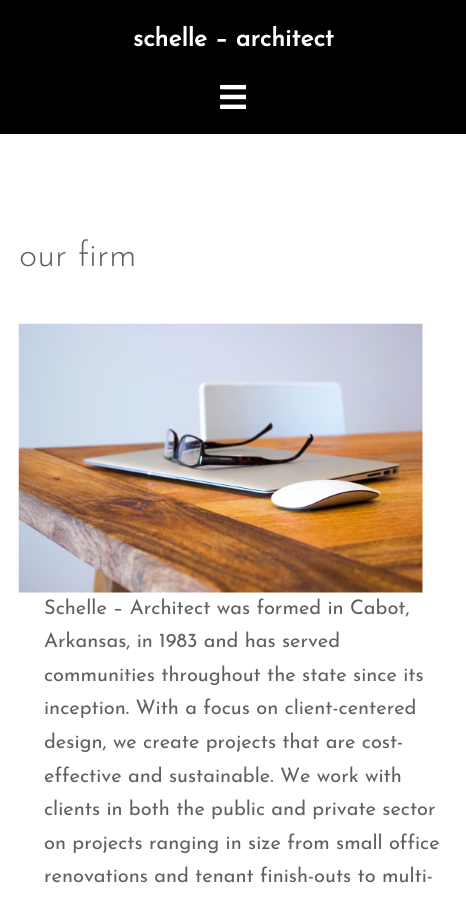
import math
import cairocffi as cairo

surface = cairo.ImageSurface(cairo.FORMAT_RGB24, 466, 905)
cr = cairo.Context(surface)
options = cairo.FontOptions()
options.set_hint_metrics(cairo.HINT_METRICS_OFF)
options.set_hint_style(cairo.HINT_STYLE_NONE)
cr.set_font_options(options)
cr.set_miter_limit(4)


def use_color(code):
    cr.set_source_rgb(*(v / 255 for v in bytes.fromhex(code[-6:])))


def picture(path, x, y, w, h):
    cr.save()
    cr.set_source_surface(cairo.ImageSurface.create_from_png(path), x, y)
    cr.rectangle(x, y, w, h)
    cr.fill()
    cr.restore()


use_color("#ffffff")
cr.paint()
use_color("#000000")
cr.rectangle(0, 0, 466, 134)
cr.fill()
cr.select_font_face("Josefin Sans", cairo.FONT_SLANT_NORMAL, cairo.FONT_WEIGHT_BOLD)
cr.set_font_size(25)
use_color("#ffffff")
cr.move_to(133, 46)
cr.show_text("schelle – architect")
picture("img1.png", 220, 84, 26, 25)
cr.select_font_face("Josefin Sans Light")
cr.set_font_size(35)
use_color("#606060")
cr.move_to(19, 266)
cr.show_text("our firm")
picture("img2.png", 18, 323, 405, 270)
cr.select_font_face("Josefin Sans")
cr.set_font_size(20)
cr.move_to(44, 614)
cr.show_text("Schelle – Architect was formed in Cabot,")
cr.move_to(44, 647)
cr.show_text("Arkansas, in 1983 and has served")
cr.move_to(44, 681)
cr.show_text("communities throughout the state since its")
cr.move_to(44, 714)
cr.show_text("inception. With a focus on client-centered")
cr.move_to(44, 748)
cr.show_text("design, we create projects that are cost-")
cr.move_to(44, 782)
cr.show_text("effective and sustainable. We work with")
cr.move_to(44, 815)
cr.show_text("clients in both the public and private sector")
cr.move_to(44, 849)
cr.show_text("on projects ranging in size from small office")
cr.move_to(44, 882)
cr.show_text("renovations and tenant finish-outs to multi-")
surface.write_to_png("result.png")
